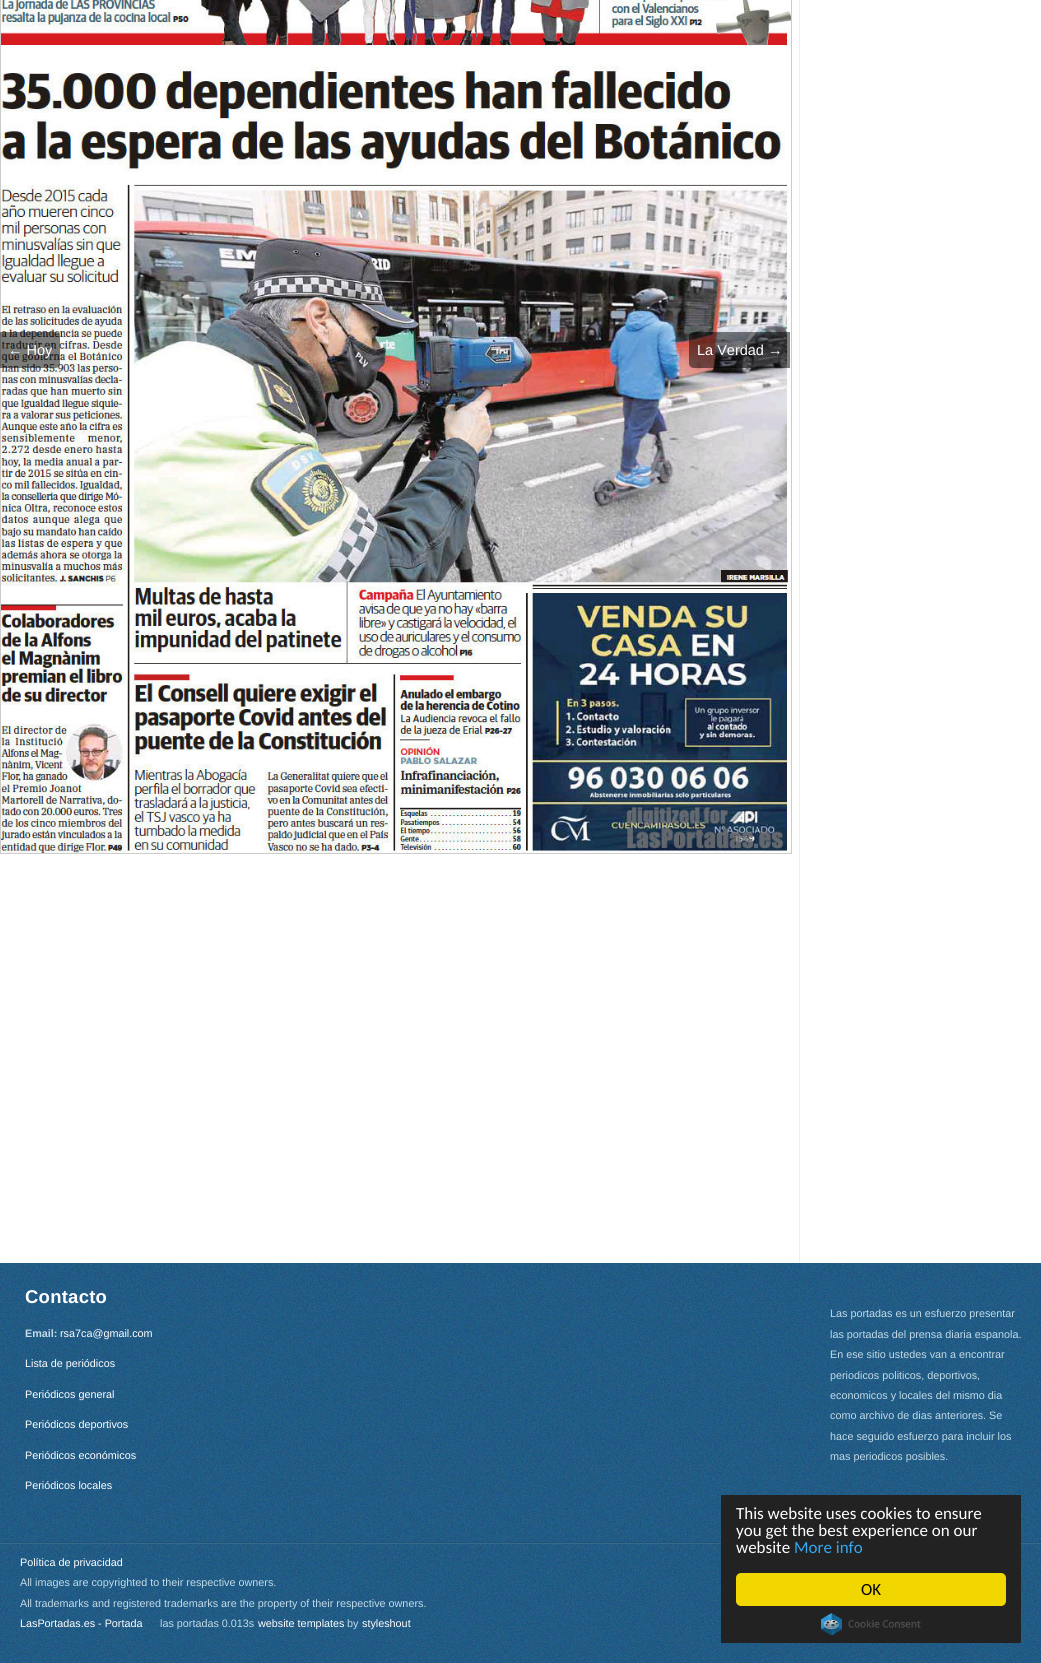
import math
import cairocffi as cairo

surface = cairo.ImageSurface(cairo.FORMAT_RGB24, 1041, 1663)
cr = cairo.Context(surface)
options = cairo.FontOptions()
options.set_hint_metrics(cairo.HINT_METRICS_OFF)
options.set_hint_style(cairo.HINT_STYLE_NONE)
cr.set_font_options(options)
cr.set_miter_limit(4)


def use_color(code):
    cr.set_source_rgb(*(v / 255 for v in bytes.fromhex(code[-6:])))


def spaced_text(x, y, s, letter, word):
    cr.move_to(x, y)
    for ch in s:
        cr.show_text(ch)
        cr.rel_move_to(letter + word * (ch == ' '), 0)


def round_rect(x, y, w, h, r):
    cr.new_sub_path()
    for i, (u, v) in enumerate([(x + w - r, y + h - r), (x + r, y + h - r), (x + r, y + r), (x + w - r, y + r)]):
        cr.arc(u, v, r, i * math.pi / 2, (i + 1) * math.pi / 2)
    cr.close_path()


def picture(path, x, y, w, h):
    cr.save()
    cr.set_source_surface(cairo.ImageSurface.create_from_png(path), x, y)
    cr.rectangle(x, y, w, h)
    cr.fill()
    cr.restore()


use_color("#ffffff")
cr.paint()
picture("img1.png", 0, 1263, 1041, 400)
use_color("#eeeeee")
cr.rectangle(799, 0, 1, 1263)
cr.fill()
cr.rectangle(0.5, -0.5, 791, 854)
use_color("#cccccc")
cr.set_line_width(1)
cr.stroke()
picture("img2.png", 1, 0, 790, 853)
cr.set_source_rgba(0, 0, 0, 0.5)
cr.new_path()
cr.move_to(0, 332)
cr.line_to(55, 332)
cr.curve_to(58, 332, 60, 334, 60, 337)
cr.line_to(60, 363)
cr.curve_to(60, 366, 58, 368, 55, 368)
cr.line_to(0, 368)
cr.close_path()
cr.fill()
cr.select_font_face("Liberation Sans")
cr.set_font_size(14.5)
use_color("#ffffff")
cr.move_to(8, 355)
cr.show_text("← Hoy")
cr.set_source_rgba(0, 0, 0, 0.5)
cr.new_path()
cr.move_to(694, 332)
cr.line_to(790, 332)
cr.line_to(790, 368)
cr.line_to(694, 368)
cr.curve_to(691, 368, 689, 366, 689, 363)
cr.line_to(689, 337)
cr.curve_to(689, 334, 691, 332, 694, 332)
cr.close_path()
cr.fill()
use_color("#ffffff")
cr.move_to(697, 355)
cr.show_text("La Verdad →")
cr.select_font_face("Liberation Sans", cairo.FONT_SLANT_NORMAL, cairo.FONT_WEIGHT_BOLD)
cr.set_font_size(18.5)
spaced_text(25, 1303, "Contacto", 0.25, 0)
cr.set_font_size(10.8)
use_color("#c2dbe7")
cr.move_to(25, 1337)
cr.show_text("Email:")
cr.select_font_face("Liberation Sans")
use_color("#ffffff")
cr.move_to(60, 1337)
cr.show_text("rsa7ca@gmail.com")
cr.move_to(25, 1367)
cr.show_text("Lista de periódicos")
cr.move_to(25, 1398)
cr.show_text("Periódicos general")
cr.move_to(25, 1428)
cr.show_text("Periódicos deportivos")
cr.move_to(25, 1459)
cr.show_text("Periódicos económicos")
cr.move_to(25, 1489)
cr.show_text("Periódicos locales")
use_color("#c2dbe7")
cr.move_to(830, 1317)
cr.show_text("Las portadas es un esfuerzo presentar")
cr.move_to(830, 1338)
cr.show_text("las portadas del prensa diaria espanola.")
cr.move_to(830, 1358)
cr.show_text("En ese sitio ustedes van a encontrar")
cr.move_to(830, 1379)
cr.show_text("periodicos politicos, deportivos,")
cr.move_to(830, 1399)
cr.show_text("economicos y locales del mismo dia")
cr.move_to(830, 1419)
cr.show_text("como archivo de dias anteriores. Se")
cr.move_to(830, 1440)
cr.show_text("hace seguido esfuerzo para incluir los")
cr.move_to(830, 1460)
cr.show_text("mas periodicos posibles.")
picture("img3.png", 0, 1542, 1041, 2)
use_color("#ffffff")
cr.move_to(20, 1566)
cr.show_text("Política de privacidad")
use_color("#c2dbe7")
cr.move_to(20, 1586)
cr.show_text("All images are copyrighted to their respective owners.")
cr.move_to(20, 1607)
cr.show_text("All trademarks and registered trademarks are the property of their respective owners.")
use_color("#ffffff")
cr.move_to(20, 1627)
cr.show_text("LasPortadas.es - Portada")
use_color("#c2dbe7")
cr.move_to(160, 1627)
cr.show_text("las portadas 0.013s")
use_color("#ffffff")
cr.move_to(258, 1627)
cr.show_text("website templates")
use_color("#c2dbe7")
cr.move_to(347, 1627)
cr.show_text("by")
use_color("#ffffff")
cr.move_to(362, 1627)
cr.show_text("styleshout")
use_color("#222222")
cr.rectangle(721, 1495, 300, 148)
cr.fill()
cr.select_font_face("Carlito")
cr.set_font_size(17)
use_color("#ffffff")
cr.move_to(736, 1519)
cr.show_text("This website uses cookies to ensure")
cr.move_to(736, 1536)
cr.show_text("you get the best experience on our")
cr.move_to(736, 1553)
cr.show_text("website")
use_color("#31a8f0")
cr.move_to(794, 1553)
cr.show_text("More info")
use_color("#f1d600")
round_rect(736, 1573, 270, 33, 5)
cr.fill()
use_color("#000000")
cr.move_to(861, 1595)
cr.show_text("OK")
picture("img4.png", 821, 1613, 100, 22)
surface.write_to_png("result.png")
